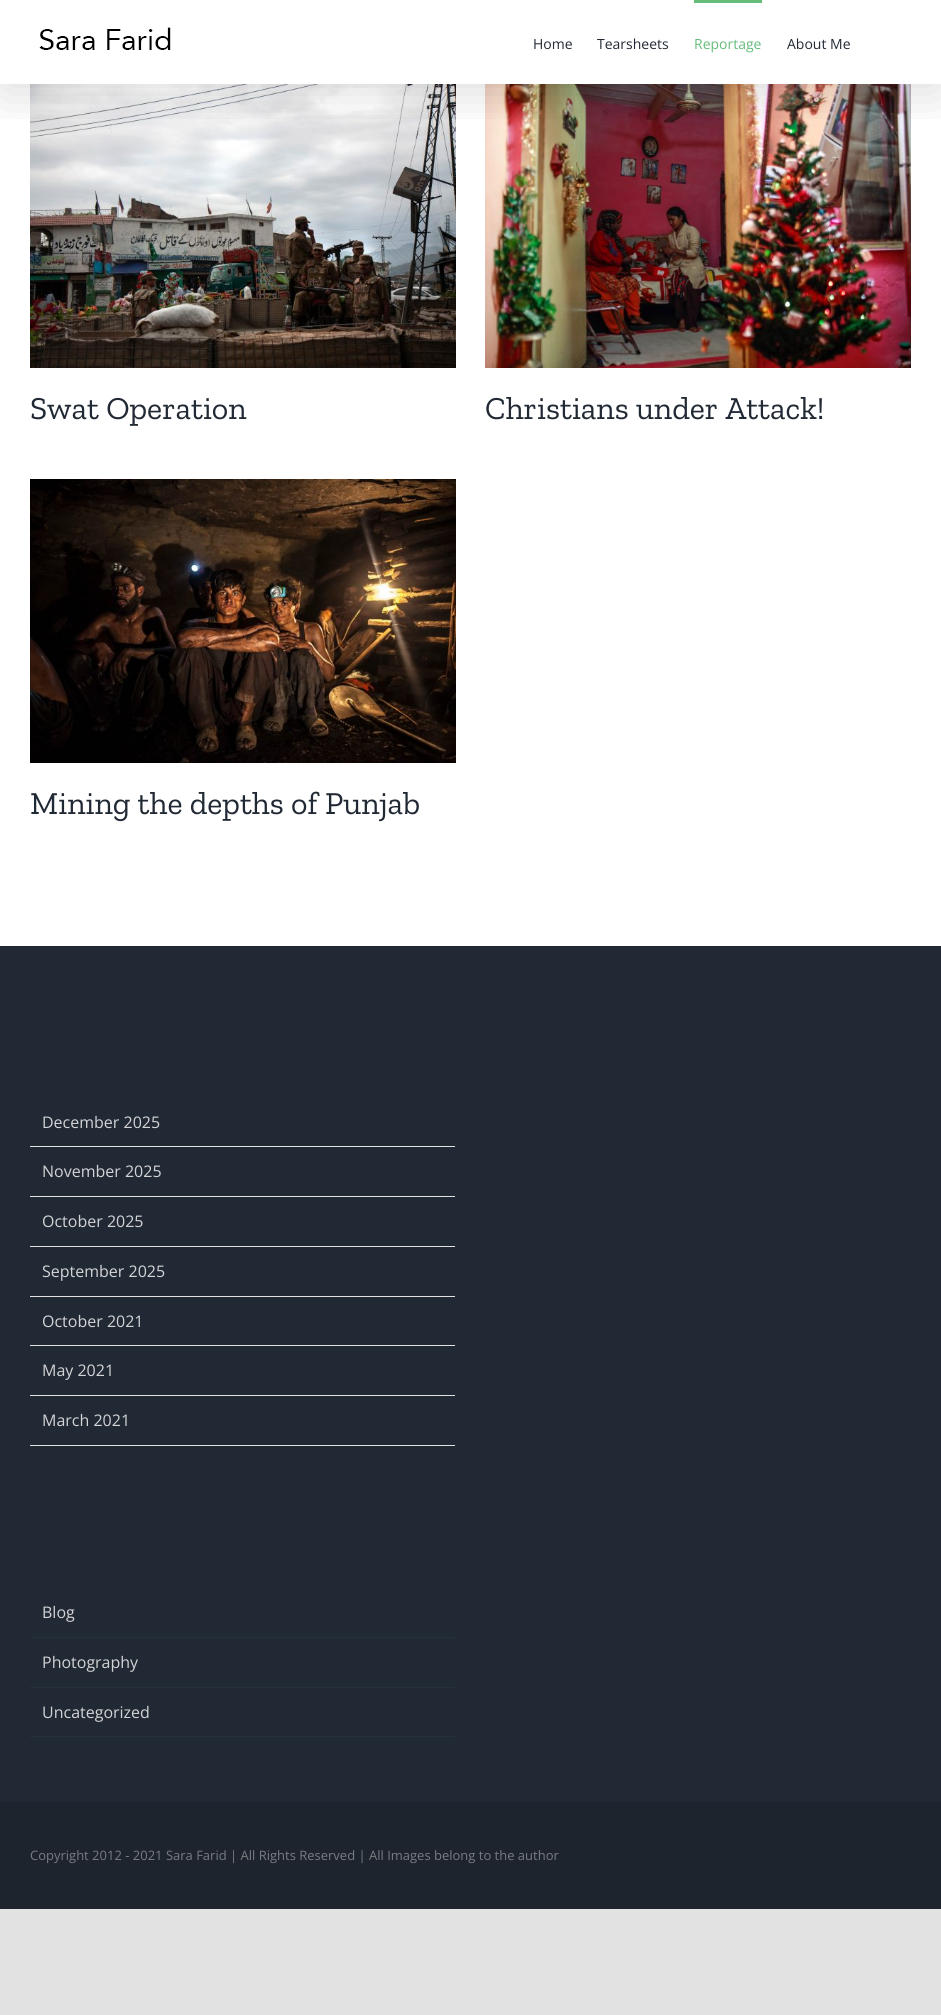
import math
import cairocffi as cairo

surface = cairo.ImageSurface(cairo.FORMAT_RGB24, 941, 2015)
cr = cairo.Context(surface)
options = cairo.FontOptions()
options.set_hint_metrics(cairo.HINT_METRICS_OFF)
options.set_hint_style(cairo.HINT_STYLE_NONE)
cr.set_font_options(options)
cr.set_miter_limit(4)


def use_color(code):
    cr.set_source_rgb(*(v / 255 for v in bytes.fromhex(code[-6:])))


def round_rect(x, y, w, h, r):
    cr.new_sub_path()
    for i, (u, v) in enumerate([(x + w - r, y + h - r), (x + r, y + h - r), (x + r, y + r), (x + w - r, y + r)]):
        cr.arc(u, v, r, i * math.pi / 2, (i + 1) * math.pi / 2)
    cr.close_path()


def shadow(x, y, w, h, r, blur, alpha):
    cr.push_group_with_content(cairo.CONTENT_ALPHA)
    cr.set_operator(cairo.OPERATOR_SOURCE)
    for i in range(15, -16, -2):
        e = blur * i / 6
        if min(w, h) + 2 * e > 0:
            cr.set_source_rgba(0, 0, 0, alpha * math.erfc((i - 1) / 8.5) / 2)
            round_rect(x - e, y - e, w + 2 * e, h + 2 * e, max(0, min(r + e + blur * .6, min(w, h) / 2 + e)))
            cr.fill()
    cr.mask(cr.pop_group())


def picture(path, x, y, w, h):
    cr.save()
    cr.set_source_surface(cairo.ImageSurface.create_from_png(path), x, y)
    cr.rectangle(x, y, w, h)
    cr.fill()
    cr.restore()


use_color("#e2e2e2")
cr.paint()
use_color("#ffffff")
cr.rectangle(0, 0, 941, 946)
cr.fill()
picture("img2.png", 30, 84, 426, 284)
picture("img3.png", 485, 84, 426, 284)
cr.save()
cr.rectangle(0, 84, 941, 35)
cr.clip()
use_color("#000000")
shadow(2, 12, 937, 80, 0, 25, 0.14)
cr.restore()
picture("img1.png", 39, 27, 132, 23)
cr.select_font_face("Open Sans")
cr.set_font_size(14)
use_color("#212934")
cr.move_to(533, 49)
cr.show_text("Home")
cr.move_to(597, 49)
cr.show_text("Tearsheets")
use_color("#65bc7b")
cr.rectangle(694, 0, 68, 3)
cr.fill()
cr.move_to(694, 49)
cr.show_text("Reportage")
use_color("#212934")
cr.move_to(787, 49)
cr.show_text("About Me")
cr.select_font_face("Zilla Slab")
cr.set_font_size(32)
cr.move_to(30, 419)
cr.show_text("Swat Operation")
cr.move_to(485, 419)
cr.show_text("Christians under Attack!")
picture("img4.png", 30, 479, 426, 284)
cr.move_to(30, 814)
cr.show_text("Mining the depths of Punjab")
cr.rectangle(0, 946, 941, 856)
cr.fill()
use_color("#e2e2e2")
cr.rectangle(30, 1146, 425, 1)
cr.fill()
cr.select_font_face("Open Sans")
cr.set_font_size(16)
use_color("#d3d4d6")
cr.move_to(42, 1128)
cr.show_text("December 2025")
use_color("#e2e2e2")
cr.rectangle(30, 1196, 425, 1)
cr.fill()
use_color("#d3d4d6")
cr.move_to(42, 1177)
cr.show_text("November 2025")
use_color("#e2e2e2")
cr.rectangle(30, 1246, 425, 1)
cr.fill()
use_color("#d3d4d6")
cr.move_to(42, 1227)
cr.show_text("October 2025")
use_color("#e2e2e2")
cr.rectangle(30, 1296, 425, 1)
cr.fill()
use_color("#d3d4d6")
cr.move_to(42, 1277)
cr.show_text("September 2025")
use_color("#e2e2e2")
cr.rectangle(30, 1345, 425, 1)
cr.fill()
use_color("#d3d4d6")
cr.move_to(42, 1327)
cr.show_text("October 2021")
use_color("#e2e2e2")
cr.rectangle(30, 1395, 425, 1)
cr.fill()
use_color("#d3d4d6")
cr.move_to(42, 1376)
cr.show_text("May 2021")
use_color("#e2e2e2")
cr.rectangle(30, 1445, 425, 1)
cr.fill()
use_color("#d3d4d6")
cr.move_to(42, 1426)
cr.show_text("March 2021")
use_color("#26303e")
cr.rectangle(30, 1637, 425, 1)
cr.fill()
use_color("#d3d4d6")
cr.move_to(42, 1618)
cr.show_text("Blog")
use_color("#26303e")
cr.rectangle(30, 1687, 425, 1)
cr.fill()
use_color("#d3d4d6")
cr.move_to(42, 1668)
cr.show_text("Photography")
use_color("#26303e")
cr.rectangle(30, 1736, 425, 1)
cr.fill()
use_color("#d3d4d6")
cr.move_to(42, 1718)
cr.show_text("Uncategorized")
use_color("#1d242d")
cr.rectangle(0, 1802, 941, 107)
cr.fill()
cr.set_font_size(13)
use_color("#777c81")
cr.move_to(30, 1860)
cr.show_text("Copyright 2012 - 2021 Sara Farid | All Rights Reserved | All Images belong to the author")
surface.write_to_png("result.png")
